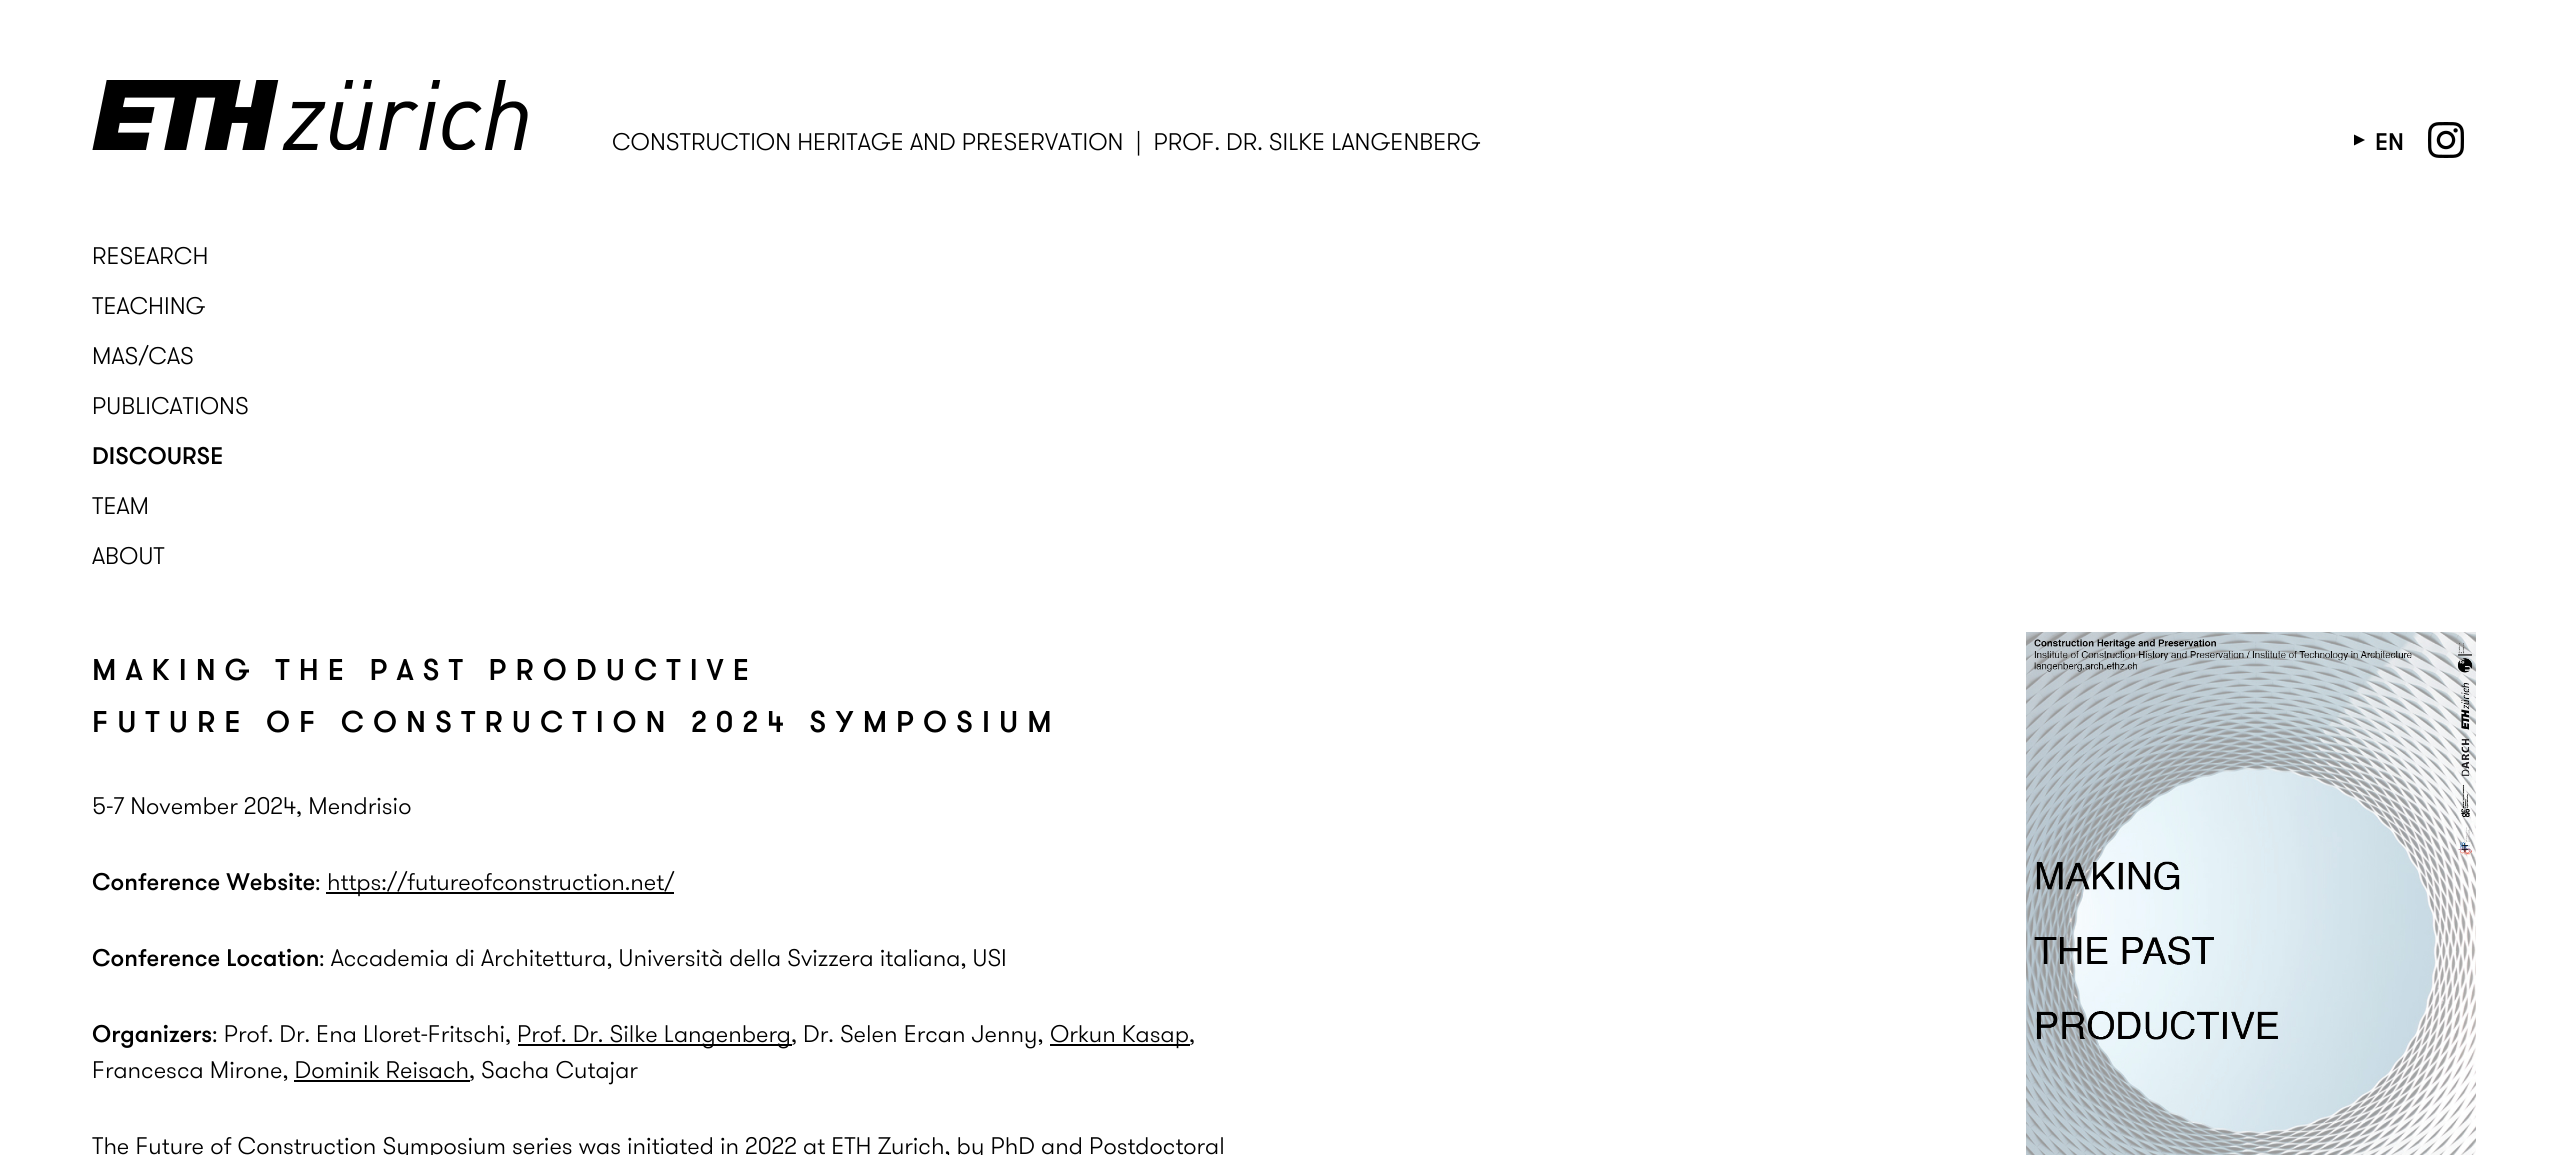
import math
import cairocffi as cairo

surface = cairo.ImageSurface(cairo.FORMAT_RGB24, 2556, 1155)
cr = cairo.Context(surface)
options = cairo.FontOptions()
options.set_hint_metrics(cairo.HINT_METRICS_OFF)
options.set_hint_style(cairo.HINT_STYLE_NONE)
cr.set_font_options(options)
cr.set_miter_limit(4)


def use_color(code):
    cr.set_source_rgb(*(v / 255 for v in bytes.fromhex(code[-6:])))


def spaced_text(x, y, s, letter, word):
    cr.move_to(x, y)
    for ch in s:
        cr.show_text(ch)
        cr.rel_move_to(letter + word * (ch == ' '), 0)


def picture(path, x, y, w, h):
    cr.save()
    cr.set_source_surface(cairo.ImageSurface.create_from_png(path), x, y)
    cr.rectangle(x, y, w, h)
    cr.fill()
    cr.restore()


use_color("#ffffff")
cr.paint()
picture("img1.png", 92, 80, 436, 70)
cr.select_font_face("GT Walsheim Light")
cr.set_font_size(24)
use_color("#000000")
cr.move_to(612, 150)
cr.show_text("CONSTRUCTION HERITAGE AND PRESERVATION  |  PROF. DR. SILKE LANGENBERG")
cr.new_path()
cr.move_to(2354, 134.5)
cr.line_to(2365, 140)
cr.line_to(2354, 145.5)
cr.close_path()
cr.fill()
cr.select_font_face("GT Walsheim Medium")
cr.move_to(2375, 150)
cr.show_text("EN")
picture("img2.png", 2428, 122, 36, 36)
cr.select_font_face("GT Walsheim Light")
cr.move_to(92, 264)
cr.show_text("RESEARCH")
cr.move_to(92, 314)
cr.show_text("TEACHING")
cr.move_to(92, 364)
cr.show_text("MAS/CAS")
cr.move_to(92, 414)
cr.show_text("PUBLICATIONS")
cr.select_font_face("GT Walsheim Medium")
cr.move_to(92, 464)
cr.show_text("DISCOURSE")
cr.select_font_face("GT Walsheim Light")
cr.move_to(92, 514)
cr.show_text("TEAM")
cr.move_to(92, 564)
cr.show_text("ABOUT")
cr.select_font_face("GT Walsheim Medium")
cr.set_font_size(30)
spaced_text(92, 680, "MAKING THE PAST PRODUCTIVE", 9, 0)
spaced_text(92, 732, "FUTURE OF CONSTRUCTION 2024 SYMPOSIUM", 9, 0)
cr.select_font_face("GT Walsheim Light")
cr.set_font_size(24)
cr.move_to(92, 814)
cr.show_text("5-7 November 2024, Mendrisio")
cr.select_font_face("GT Walsheim Medium")
cr.move_to(92, 890)
cr.show_text("Conference Website")
cr.select_font_face("GT Walsheim Light")
cr.move_to(315, 890)
cr.show_text(":")
cr.rectangle(326, 892, 348, 2)
cr.fill()
cr.move_to(327, 890)
cr.show_text("https://futureofconstruction.net/")
cr.select_font_face("GT Walsheim Medium")
cr.move_to(92, 966)
cr.show_text("Conference Location")
cr.select_font_face("GT Walsheim Light")
cr.move_to(319, 966)
cr.show_text(": Accademia di Architettura, Università della Svizzera italiana, USI")
cr.select_font_face("GT Walsheim Medium")
cr.move_to(92, 1042)
cr.show_text("Organizers")
cr.select_font_face("GT Walsheim Light")
cr.move_to(212, 1042)
cr.show_text(": Prof. Dr. Ena Lloret-Fritschi,")
cr.rectangle(518, 1044, 274, 2)
cr.fill()
cr.move_to(517, 1042)
cr.show_text("Prof. Dr. Silke Langenberg")
cr.move_to(791, 1042)
cr.show_text(", Dr. Selen Ercan Jenny,")
cr.rectangle(1050, 1044, 140, 2)
cr.fill()
cr.move_to(1050, 1042)
cr.show_text("Orkun Kasap")
cr.move_to(1189, 1042)
cr.show_text(",")
cr.move_to(92, 1078)
cr.show_text("Francesca Mirone, Dominik Reisach")
cr.move_to(469, 1078)
cr.show_text(", Sacha Cutajar")
cr.rectangle(294, 1080, 176, 2)
cr.fill()
cr.move_to(92, 1154)
cr.show_text("The Future of Construction Symposium series was initiated in 2022 at ETH Zurich, by PhD and Postdoctoral")
picture("img3.png", 2026, 632, 450, 523)
surface.write_to_png("result.png")
